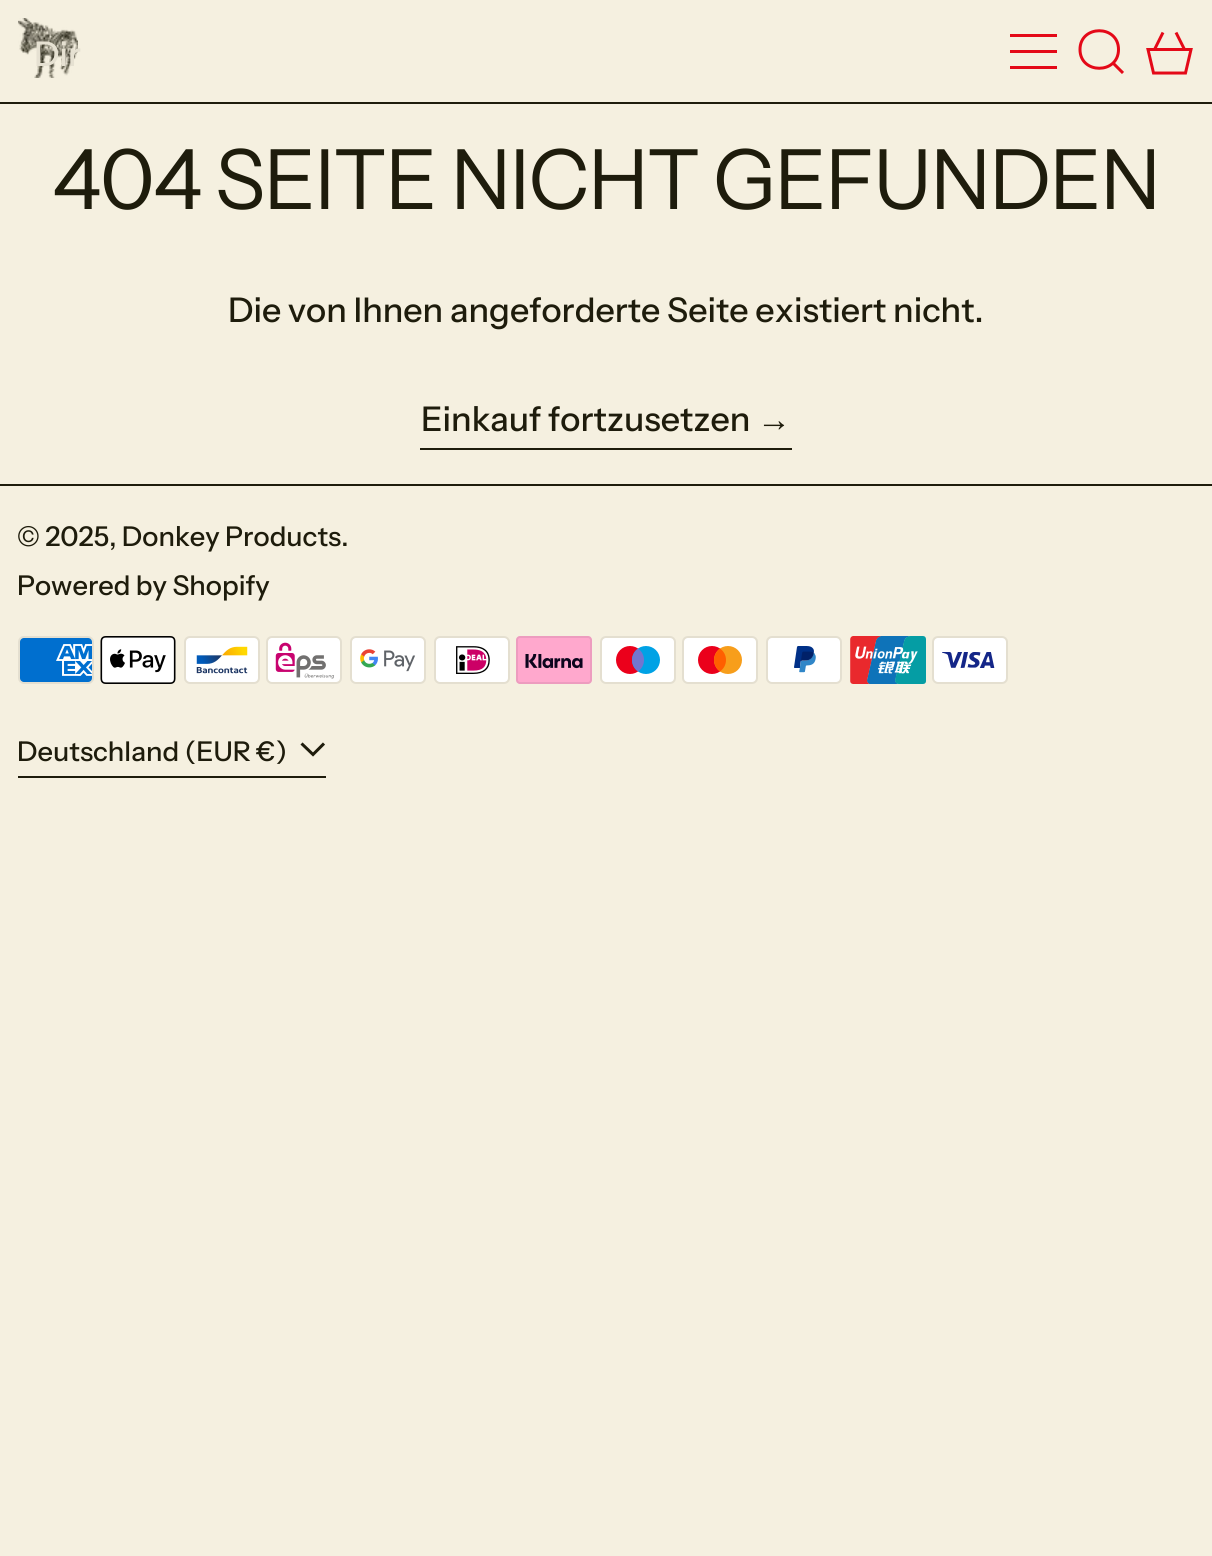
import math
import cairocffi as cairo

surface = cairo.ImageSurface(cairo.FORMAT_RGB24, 1212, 1556)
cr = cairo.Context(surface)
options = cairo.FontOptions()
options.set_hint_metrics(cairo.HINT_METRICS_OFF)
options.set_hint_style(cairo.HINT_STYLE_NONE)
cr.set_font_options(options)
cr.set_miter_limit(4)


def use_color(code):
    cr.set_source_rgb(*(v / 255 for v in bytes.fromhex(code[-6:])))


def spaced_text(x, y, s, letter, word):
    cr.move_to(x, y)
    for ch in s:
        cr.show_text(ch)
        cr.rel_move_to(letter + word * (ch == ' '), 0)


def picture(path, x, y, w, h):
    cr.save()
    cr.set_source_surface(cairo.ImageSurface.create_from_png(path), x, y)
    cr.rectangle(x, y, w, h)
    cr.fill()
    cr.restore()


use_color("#f5f0e0")
cr.paint()
use_color("#1e1c0c")
cr.rectangle(0, 102, 1212, 2)
cr.fill()
picture("img1.png", 18, 18, 60, 60)
cr.new_path()
cr.move_to(1010, 35.5)
cr.line_to(1057, 35.5)
cr.move_to(1010, 51.5)
cr.line_to(1057, 51.5)
cr.move_to(1010, 67.5)
cr.line_to(1057, 67.5)
use_color("#e40918")
cr.set_line_width(3)
cr.stroke()
cr.new_path()
cr.move_to(1080, 49.5)
cr.curve_to(1080, 74.5, 1118.5, 74.5, 1118.5, 49.5)
cr.curve_to(1118.5, 24.5, 1080, 24.5, 1080, 49.5)
cr.close_path()
cr.move_to(1113, 63)
cr.line_to(1123, 73)
cr.stroke()
cr.new_path()
cr.move_to(1153.5, 73)
cr.line_to(1148, 49.5)
cr.line_to(1191, 49.5)
cr.line_to(1185.5, 73)
cr.close_path()
cr.move_to(1154.5, 49.5)
cr.line_to(1163, 32.5)
cr.move_to(1184.5, 49.5)
cr.line_to(1176, 32.5)
cr.stroke()
cr.select_font_face("Instrument Sans Medium")
cr.set_font_size(34)
use_color("#e6e1d2")
cr.move_to(34, 66)
cr.show_text("Dir")
use_color("#1e1c0c")
cr.rectangle(0, 484, 1212, 2)
cr.fill()
cr.select_font_face("Instrument Sans")
cr.set_font_size(83)
spaced_text(52, 209, "404 SEITE NICHT GEFUNDEN", -2.1, 0)
cr.select_font_face("Instrument Sans Medium")
cr.set_font_size(34)
cr.move_to(228, 322)
cr.show_text("Die von Ihnen angeforderte Seite existiert nicht.")
cr.rectangle(420, 448, 372, 2)
cr.fill()
cr.move_to(421, 431)
cr.show_text("Einkauf fortzusetzen")
cr.select_font_face("Liberation Sans")
cr.move_to(757, 431)
cr.show_text("→")
cr.select_font_face("Instrument Sans Medium")
cr.set_font_size(27.25)
cr.move_to(17, 546)
cr.show_text("© 2025, Donkey Products.")
cr.move_to(17, 595)
cr.show_text("Powered by Shopify")
picture("img2.png", 18, 636, 76, 48)
picture("img3.png", 100, 636, 76, 48)
picture("img4.png", 184, 636, 76, 48)
picture("img5.png", 266, 636, 76, 48)
picture("img6.png", 350, 636, 76, 48)
picture("img7.png", 434, 636, 76, 48)
picture("img8.png", 516, 636, 76, 48)
picture("img9.png", 600, 636, 76, 48)
picture("img10.png", 682, 636, 76, 48)
picture("img11.png", 766, 636, 76, 48)
picture("img12.png", 850, 636, 76, 48)
picture("img13.png", 932, 636, 76, 48)
cr.rectangle(18, 776, 308, 2)
cr.fill()
cr.move_to(17, 761)
cr.show_text("Deutschland (EUR €)")
cr.new_path()
cr.move_to(301.5, 743.5)
cr.line_to(313, 754.5)
cr.line_to(324, 743.5)
cr.stroke()
surface.write_to_png("result.png")
